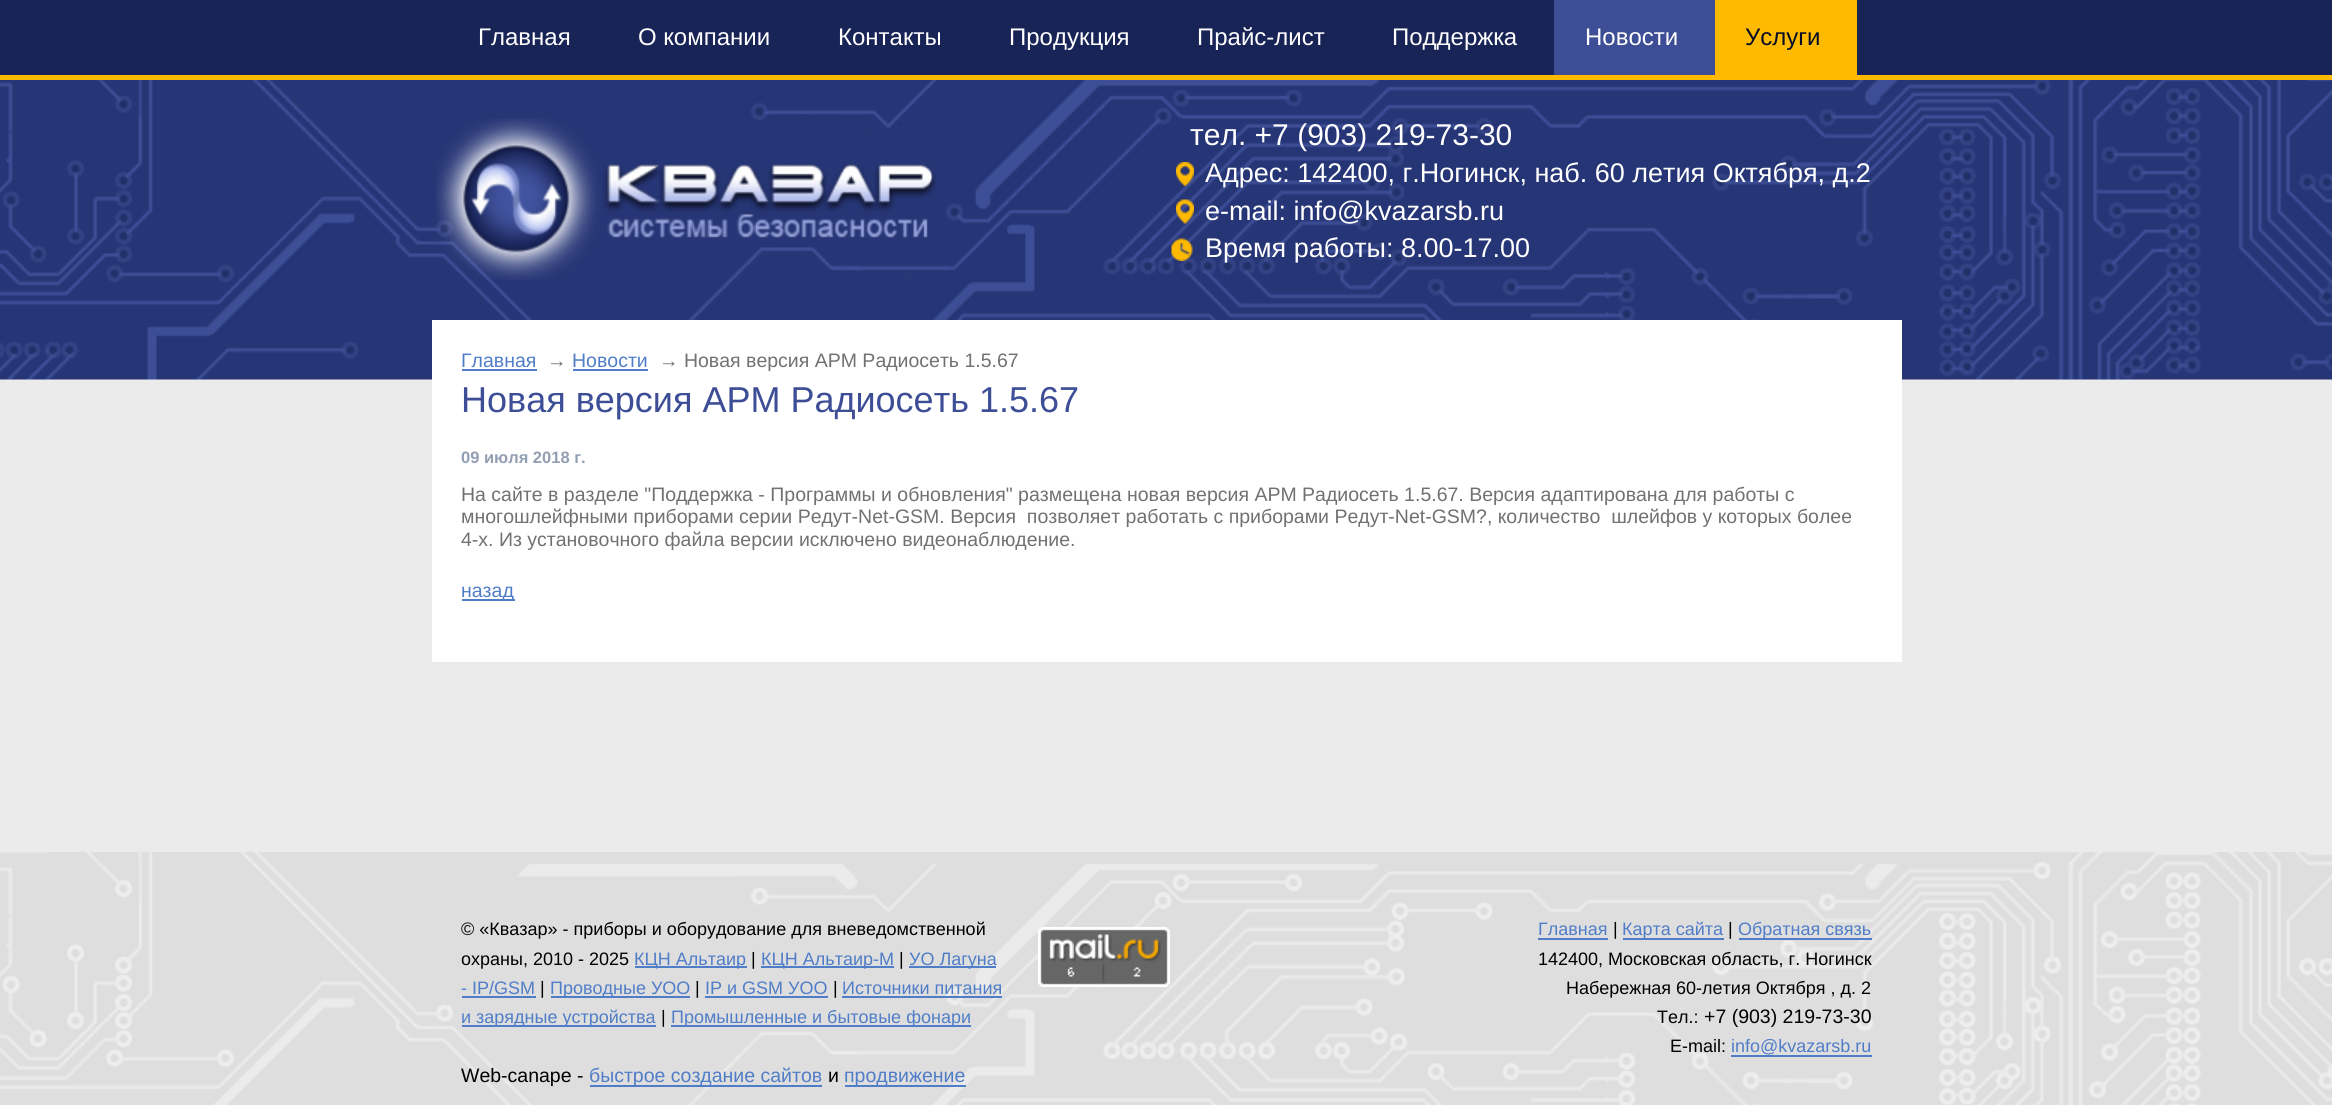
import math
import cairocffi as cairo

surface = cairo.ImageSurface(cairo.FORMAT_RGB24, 2332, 1105)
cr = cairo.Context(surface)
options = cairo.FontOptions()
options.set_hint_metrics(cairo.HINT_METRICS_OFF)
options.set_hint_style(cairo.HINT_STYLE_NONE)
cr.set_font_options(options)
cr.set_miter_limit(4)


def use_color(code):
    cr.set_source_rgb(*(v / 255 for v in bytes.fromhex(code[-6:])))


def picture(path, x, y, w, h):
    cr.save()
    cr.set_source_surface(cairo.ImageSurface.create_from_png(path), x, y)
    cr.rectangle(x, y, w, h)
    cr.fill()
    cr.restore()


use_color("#ebebeb")
cr.paint()
picture("img1.png", 0, 80, 2332, 300)
picture("img2.png", 0, 852, 2332, 253)
use_color("#182356")
cr.rectangle(0, 0, 2332, 75)
cr.fill()
use_color("#ffba00")
cr.rectangle(0, 75, 2332, 5)
cr.fill()
cr.select_font_face("Liberation Sans")
cr.set_font_size(24)
use_color("#ffffff")
cr.move_to(478, 45)
cr.show_text("Главная")
cr.move_to(638, 45)
cr.show_text("О компании")
cr.move_to(838, 45)
cr.show_text("Контакты")
cr.move_to(1009, 45)
cr.show_text("Продукция")
cr.move_to(1197, 45)
cr.show_text("Прайс-лист")
cr.move_to(1392, 45)
cr.show_text("Поддержка")
use_color("#3d4e96")
cr.rectangle(1554, 0, 161, 75)
cr.fill()
use_color("#ffffff")
cr.move_to(1585, 45)
cr.show_text("Новости")
use_color("#ffba00")
cr.rectangle(1715, 0, 142, 75)
cr.fill()
use_color("#060c26")
cr.move_to(1745, 45)
cr.show_text("Услуги")
picture("img3.png", 436, 118, 500, 162)
cr.set_font_size(30)
use_color("#ffffff")
cr.move_to(1190, 145)
cr.show_text("тел. +7 (903) 219-73-30")
picture("img4.png", 1176, 162, 18, 24)
cr.set_font_size(27)
cr.move_to(1205, 182)
cr.show_text("Адрес: 142400, г.Ногинск, наб. 60 летия Октября, д.2")
picture("img5.png", 1176, 199, 18, 25)
cr.move_to(1205, 220)
cr.show_text("e-mail: info@kvazarsb.ru")
picture("img6.png", 1171, 238, 22, 23)
cr.move_to(1205, 257)
cr.show_text("Время работы: 8.00-17.00")
cr.rectangle(432, 320, 1470, 342)
cr.fill()
cr.set_font_size(19.5)
use_color("#507dc7")
cr.move_to(461, 367)
cr.show_text("Главная")
cr.rectangle(462, 369, 75, 2)
cr.fill()
use_color("#717171")
cr.move_to(547, 367)
cr.show_text("→")
use_color("#507dc7")
cr.move_to(572, 367)
cr.show_text("Новости")
cr.rectangle(573, 369, 75, 2)
cr.fill()
use_color("#717171")
cr.move_to(659, 367)
cr.show_text("→ Новая версия АРМ Радиосеть 1.5.67")
cr.set_font_size(36)
use_color("#3d4e96")
cr.move_to(461, 412)
cr.show_text("Новая версия АРМ Радиосеть 1.5.67")
cr.select_font_face("Liberation Sans", cairo.FONT_SLANT_NORMAL, cairo.FONT_WEIGHT_BOLD)
cr.set_font_size(16.5)
use_color("#929eb2")
cr.move_to(461, 463)
cr.show_text("09 июля 2018 г.")
cr.select_font_face("Liberation Sans")
cr.set_font_size(19.5)
use_color("#717171")
cr.move_to(461, 501)
cr.show_text("На сайте в разделе \"Поддержка - Программы и обновления\" размещена новая версия АРМ Радиосеть 1.5.67. Версия адаптирована для работы с")
cr.move_to(461, 523)
cr.show_text("многошлейфными приборами серии Редут-Net-GSM. Версия  позволяет работать с приборами Редут-Net-GSM?, количество  шлейфов у которых более")
cr.move_to(461, 546)
cr.show_text("4-х. Из установочного файла версии исключено видеонаблюдение.")
use_color("#507dc7")
cr.rectangle(462, 599, 53, 2)
cr.fill()
cr.move_to(461, 597)
cr.show_text("назад")
cr.set_font_size(18)
use_color("#000000")
cr.move_to(461, 935)
cr.show_text("© «Квазар» - приборы и оборудование для вневедомственной")
cr.move_to(461, 965)
cr.show_text("охраны, 2010 - 2025")
use_color("#507dc7")
cr.rectangle(635, 966, 112, 2)
cr.fill()
cr.move_to(634, 965)
cr.show_text("КЦН Альтаир")
use_color("#000000")
cr.move_to(751, 965)
cr.show_text("|")
use_color("#507dc7")
cr.rectangle(761, 966, 133, 2)
cr.fill()
cr.move_to(761, 965)
cr.show_text("КЦН Альтаир-М")
use_color("#000000")
cr.move_to(899, 965)
cr.show_text("|")
use_color("#507dc7")
cr.rectangle(909, 966, 87, 2)
cr.fill()
cr.move_to(909, 965)
cr.show_text("УО Лагуна")
cr.move_to(461, 994)
cr.show_text("- IP/GSM")
cr.rectangle(462, 996, 74, 2)
cr.fill()
use_color("#000000")
cr.move_to(540, 994)
cr.show_text("|")
use_color("#507dc7")
cr.rectangle(551, 996, 139, 2)
cr.fill()
cr.move_to(550, 994)
cr.show_text("Проводные УОО")
use_color("#000000")
cr.move_to(695, 994)
cr.show_text("|")
use_color("#507dc7")
cr.move_to(705, 994)
cr.show_text("IP и GSM УОО")
cr.rectangle(705, 996, 123, 2)
cr.fill()
use_color("#000000")
cr.move_to(833, 994)
cr.show_text("|")
use_color("#507dc7")
cr.move_to(842, 994)
cr.show_text("Источники питания")
cr.rectangle(842, 996, 160, 2)
cr.fill()
cr.rectangle(462, 1025, 194, 2)
cr.fill()
cr.move_to(461, 1023)
cr.show_text("и зарядные устройства")
use_color("#000000")
cr.move_to(661, 1023)
cr.show_text("|")
use_color("#507dc7")
cr.rectangle(671, 1025, 300, 2)
cr.fill()
cr.move_to(671, 1023)
cr.show_text("Промышленные и бытовые фонари")
cr.set_font_size(19.5)
use_color("#000000")
cr.move_to(461, 1082)
cr.show_text("Web-canape -")
use_color("#507dc7")
cr.rectangle(590, 1085, 232, 2)
cr.fill()
cr.move_to(589, 1082)
cr.show_text("быстрое создание сайтов")
use_color("#000000")
cr.move_to(828, 1082)
cr.show_text("и")
use_color("#507dc7")
cr.rectangle(845, 1085, 121, 2)
cr.fill()
cr.move_to(844, 1082)
cr.show_text("продвижение")
picture("img7.png", 1038, 927, 132, 60)
cr.set_font_size(18)
cr.move_to(1538, 935)
cr.show_text("Главная")
cr.rectangle(1538, 938, 70, 2)
cr.fill()
use_color("#000000")
cr.move_to(1613, 935)
cr.show_text("|")
use_color("#507dc7")
cr.rectangle(1623, 938, 101, 2)
cr.fill()
cr.move_to(1622, 935)
cr.show_text("Карта сайта")
use_color("#000000")
cr.move_to(1728, 935)
cr.show_text("|")
use_color("#507dc7")
cr.rectangle(1739, 938, 133, 2)
cr.fill()
cr.move_to(1738, 935)
cr.show_text("Обратная связь")
use_color("#000000")
cr.move_to(1538, 965)
cr.show_text("142400, Московская область, г. Ногинск")
cr.move_to(1566, 994)
cr.show_text("Набережная 60-летия Октября , д. 2")
cr.move_to(1657, 1023)
cr.show_text("Tел.:")
cr.set_font_size(19.5)
cr.move_to(1704, 1023)
cr.show_text("+7 (903) 219-73-30")
cr.set_font_size(18)
cr.move_to(1670, 1052)
cr.show_text("E-mail:")
use_color("#507dc7")
cr.move_to(1731, 1052)
cr.show_text("info@kvazarsb.ru")
cr.rectangle(1731, 1055, 141, 2)
cr.fill()
surface.write_to_png("result.png")
